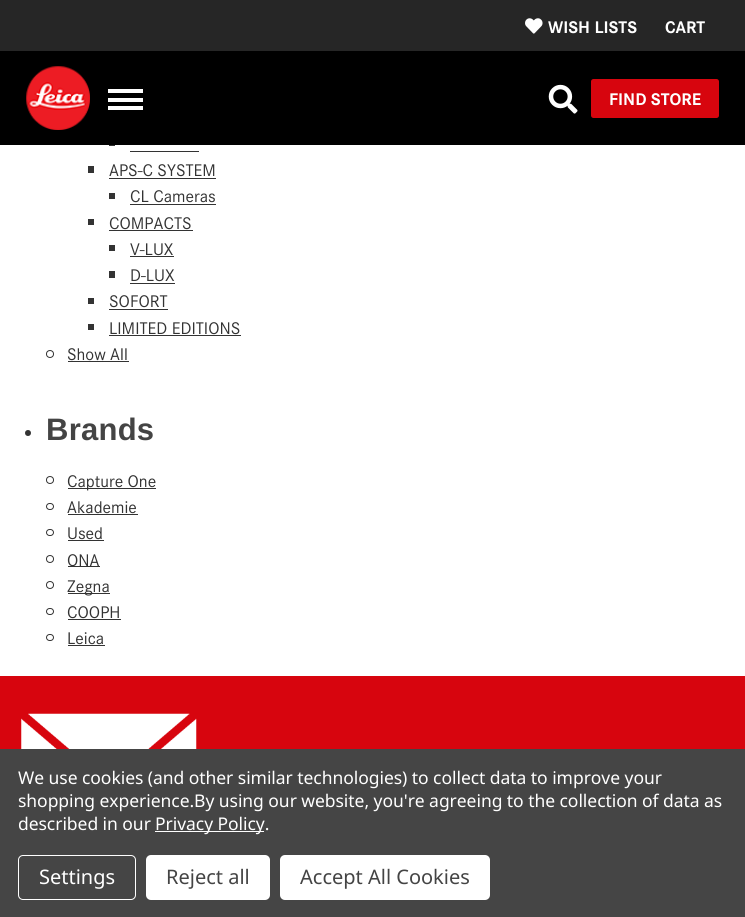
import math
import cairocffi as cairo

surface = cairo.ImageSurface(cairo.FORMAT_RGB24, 745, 917)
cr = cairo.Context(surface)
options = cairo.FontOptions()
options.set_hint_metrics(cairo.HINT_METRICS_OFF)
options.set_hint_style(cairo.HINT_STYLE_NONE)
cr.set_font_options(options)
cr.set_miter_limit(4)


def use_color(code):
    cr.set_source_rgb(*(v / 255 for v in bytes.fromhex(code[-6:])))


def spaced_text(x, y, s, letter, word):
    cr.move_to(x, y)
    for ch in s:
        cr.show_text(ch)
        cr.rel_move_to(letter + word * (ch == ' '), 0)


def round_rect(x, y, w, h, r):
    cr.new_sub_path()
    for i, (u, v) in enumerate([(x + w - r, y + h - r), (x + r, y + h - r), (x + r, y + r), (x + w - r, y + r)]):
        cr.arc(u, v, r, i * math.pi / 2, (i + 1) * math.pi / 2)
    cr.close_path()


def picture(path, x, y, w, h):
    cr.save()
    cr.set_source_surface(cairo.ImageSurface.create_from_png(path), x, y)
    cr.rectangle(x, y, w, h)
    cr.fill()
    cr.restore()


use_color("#ffffff")
cr.paint()
use_color("#262626")
cr.rectangle(0, 0, 745, 51)
cr.fill()
picture("img1.png", 525, 18, 18, 16)
cr.select_font_face("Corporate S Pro", cairo.FONT_SLANT_NORMAL, cairo.FONT_WEIGHT_BOLD)
cr.set_font_size(17.5)
use_color("#ffffff")
cr.move_to(548, 33)
cr.show_text("WISH LISTS")
cr.move_to(665, 33)
cr.show_text("CART")
use_color("#000000")
cr.rectangle(0, 51, 745, 94)
cr.fill()
picture("img2.png", 26, 66, 64, 64)
use_color("#ffffff")
cr.rectangle(108, 98, 35, 4)
cr.fill()
cr.rectangle(108, 89, 35, 4)
cr.fill()
cr.rectangle(108, 106, 35, 4)
cr.fill()
picture("img3.png", 548, 84, 30, 30)
use_color("#d7050e")
round_rect(591, 79, 128, 39, 2.5)
cr.fill()
use_color("#ffffff")
cr.move_to(609, 105)
cr.show_text("FIND STORE")
use_color("#333333")
cr.rectangle(109, 145, 6, 1)
cr.fill()
cr.rectangle(130, 151, 69, 1)
cr.fill()
cr.rectangle(88, 166, 6, 7)
cr.fill()
cr.select_font_face("Corporate S Pro")
cr.move_to(109, 176)
cr.show_text("APS-C SYSTEM")
cr.rectangle(109, 178, 107, 1)
cr.fill()
cr.rectangle(109, 193, 6, 6)
cr.fill()
cr.move_to(130, 202)
cr.show_text("CL Cameras")
cr.rectangle(130, 204, 86, 1)
cr.fill()
cr.rectangle(88, 219, 6, 6)
cr.fill()
cr.move_to(109, 229)
cr.show_text("COMPACTS")
cr.rectangle(109, 230, 84, 1)
cr.fill()
cr.rectangle(109, 245, 6, 6)
cr.fill()
cr.move_to(130, 255)
cr.show_text("V-LUX")
cr.rectangle(130, 256, 44, 1)
cr.fill()
cr.rectangle(109, 271, 6, 7)
cr.fill()
cr.move_to(130, 281)
cr.show_text("D-LUX")
cr.rectangle(130, 283, 45, 1)
cr.fill()
cr.rectangle(88, 298, 6, 6)
cr.fill()
cr.move_to(109, 307)
cr.show_text("SOFORT")
cr.rectangle(109, 309, 59, 1)
cr.fill()
cr.rectangle(88, 324, 6, 6)
cr.fill()
cr.move_to(109, 334)
cr.show_text("LIMITED EDITIONS")
cr.rectangle(109, 335, 132, 1)
cr.fill()
cr.arc(50, 354, 3.5, 0, 2 * math.pi)
cr.set_line_width(1)
cr.stroke()
cr.move_to(67, 360)
cr.show_text("Show All")
cr.rectangle(68, 361, 61, 1)
cr.fill()
cr.arc(28, 433, 3, 0, 2 * math.pi)
cr.fill()
cr.select_font_face("Liberation Sans", cairo.FONT_SLANT_NORMAL, cairo.FONT_WEIGHT_BOLD)
cr.set_font_size(31)
use_color("#444444")
spaced_text(46, 440, "Brands", 0.25, 0)
cr.new_path()
cr.arc(50, 480, 3.5, 0, 2 * math.pi)
use_color("#333333")
cr.stroke()
cr.rectangle(68, 488, 88, 1)
cr.fill()
cr.select_font_face("Corporate S Pro")
cr.set_font_size(17.5)
cr.move_to(67, 487)
cr.show_text("Capture One")
round_rect(46.5, 503.5, 7, 6, 3)
cr.stroke()
cr.move_to(67, 513)
cr.show_text("Akademie")
cr.rectangle(68, 514, 70, 1)
cr.fill()
round_rect(46.5, 529.5, 7, 6, 3)
cr.stroke()
cr.move_to(67, 539)
cr.show_text("Used")
cr.rectangle(68, 540, 36, 1)
cr.fill()
cr.arc(50, 559, 3.5, 0, 2 * math.pi)
cr.stroke()
cr.rectangle(68, 566, 32, 1)
cr.fill()
cr.move_to(67, 566)
cr.show_text("ONA")
cr.new_path()
cr.arc(50, 585, 3.5, 0, 2 * math.pi)
cr.stroke()
cr.rectangle(68, 593, 42, 1)
cr.fill()
cr.move_to(67, 592)
cr.show_text("Zegna")
round_rect(46.5, 608.5, 7, 6, 3)
cr.stroke()
cr.move_to(67, 618)
cr.show_text("COOPH")
cr.rectangle(68, 619, 53, 1)
cr.fill()
round_rect(46.5, 634.5, 7, 6, 3)
cr.stroke()
cr.move_to(67, 644)
cr.show_text("Leica")
cr.rectangle(68, 645, 37, 1)
cr.fill()
use_color("#d7050e")
cr.rectangle(0, 676, 745, 73)
cr.fill()
picture("img4.png", 21, 713, 176, 36)
use_color("#454545")
cr.rectangle(0, 749, 745, 168)
cr.fill()
cr.select_font_face("Noto Sans")
use_color("#ffffff")
spaced_text(18, 784, "We use cookies (and other similar technologies) to collect data to improve your", -0.05, 0)
spaced_text(18, 807, "shopping experience.By using our website, you're agreeing to the collection of data as", -0.05, 0)
spaced_text(18, 830, "described in our", -0.05, 0)
cr.rectangle(155, 831, 109, 1)
cr.fill()
spaced_text(155, 830, "Privacy Policy.", -0.05, 0)
round_rect(18.5, 855.5, 117, 44, 4.5)
cr.stroke()
cr.set_font_size(20)
cr.move_to(39, 884)
cr.show_text("Settings")
round_rect(146, 855, 124, 45, 5)
cr.fill()
use_color("#444444")
cr.move_to(166, 884)
cr.show_text("Reject all")
use_color("#ffffff")
round_rect(280, 855, 210, 45, 5)
cr.fill()
use_color("#444444")
cr.move_to(300, 884)
cr.show_text("Accept All Cookies")
surface.write_to_png("result.png")
